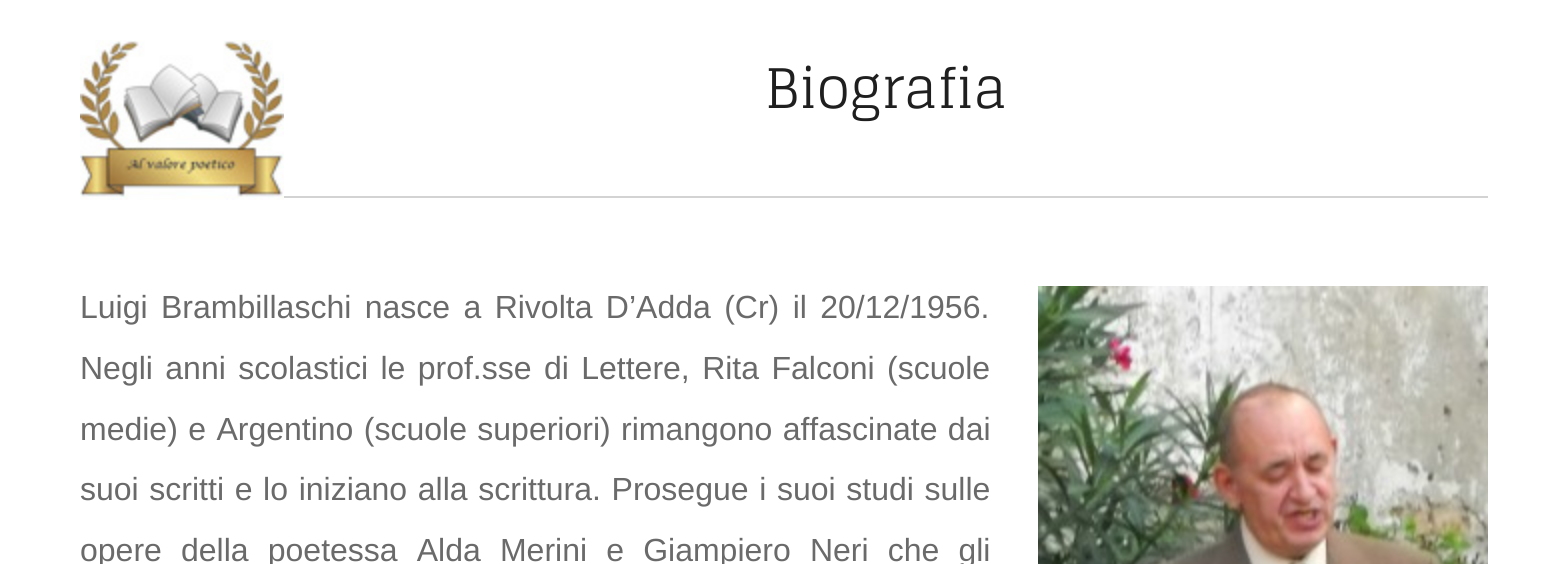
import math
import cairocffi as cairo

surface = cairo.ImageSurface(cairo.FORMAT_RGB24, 1567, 564)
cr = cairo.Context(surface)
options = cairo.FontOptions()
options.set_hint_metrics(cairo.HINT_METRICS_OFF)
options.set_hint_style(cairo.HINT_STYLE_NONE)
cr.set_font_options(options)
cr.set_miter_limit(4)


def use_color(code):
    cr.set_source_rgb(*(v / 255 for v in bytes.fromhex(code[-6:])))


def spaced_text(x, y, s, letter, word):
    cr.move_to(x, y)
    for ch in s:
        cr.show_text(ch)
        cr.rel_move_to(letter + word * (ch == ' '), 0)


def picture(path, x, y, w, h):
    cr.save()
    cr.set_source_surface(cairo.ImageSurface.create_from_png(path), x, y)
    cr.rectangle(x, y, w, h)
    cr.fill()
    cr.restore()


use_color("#ffffff")
cr.paint()
use_color("#d3d3d3")
cr.rectangle(284, 196, 1204, 2)
cr.fill()
picture("img1.png", 80, 40, 204, 160)
cr.select_font_face("Glegoo")
cr.set_font_size(54.5)
use_color("#1f1f1f")
cr.move_to(765, 108)
cr.show_text("Biografia")
cr.select_font_face("Liberation Sans")
cr.set_font_size(32)
use_color("#6a6a6a")
spaced_text(80, 318, "Luigi Brambillaschi nasce a Rivolta D’Adda (Cr) il 20/12/1956.", 0, 4.5)
picture("img2.png", 1038, 286, 450, 278)
spaced_text(80, 379, "Negli anni scolastici le prof.sse di Lettere, Rita Falconi (scuole", 0, 3.5)
spaced_text(80, 440, "medie) e Argentino (scuole superiori) rimangono affascinate dai", 0, 1.5)
spaced_text(80, 500, "suoi scritti e lo iniziano alla scrittura. Prosegue i suoi studi sulle", 0, 1.75)
spaced_text(80, 561, "opere della poetessa Alda Merini e Giampiero Neri che gli", 0, 10.25)
surface.write_to_png("result.png")
